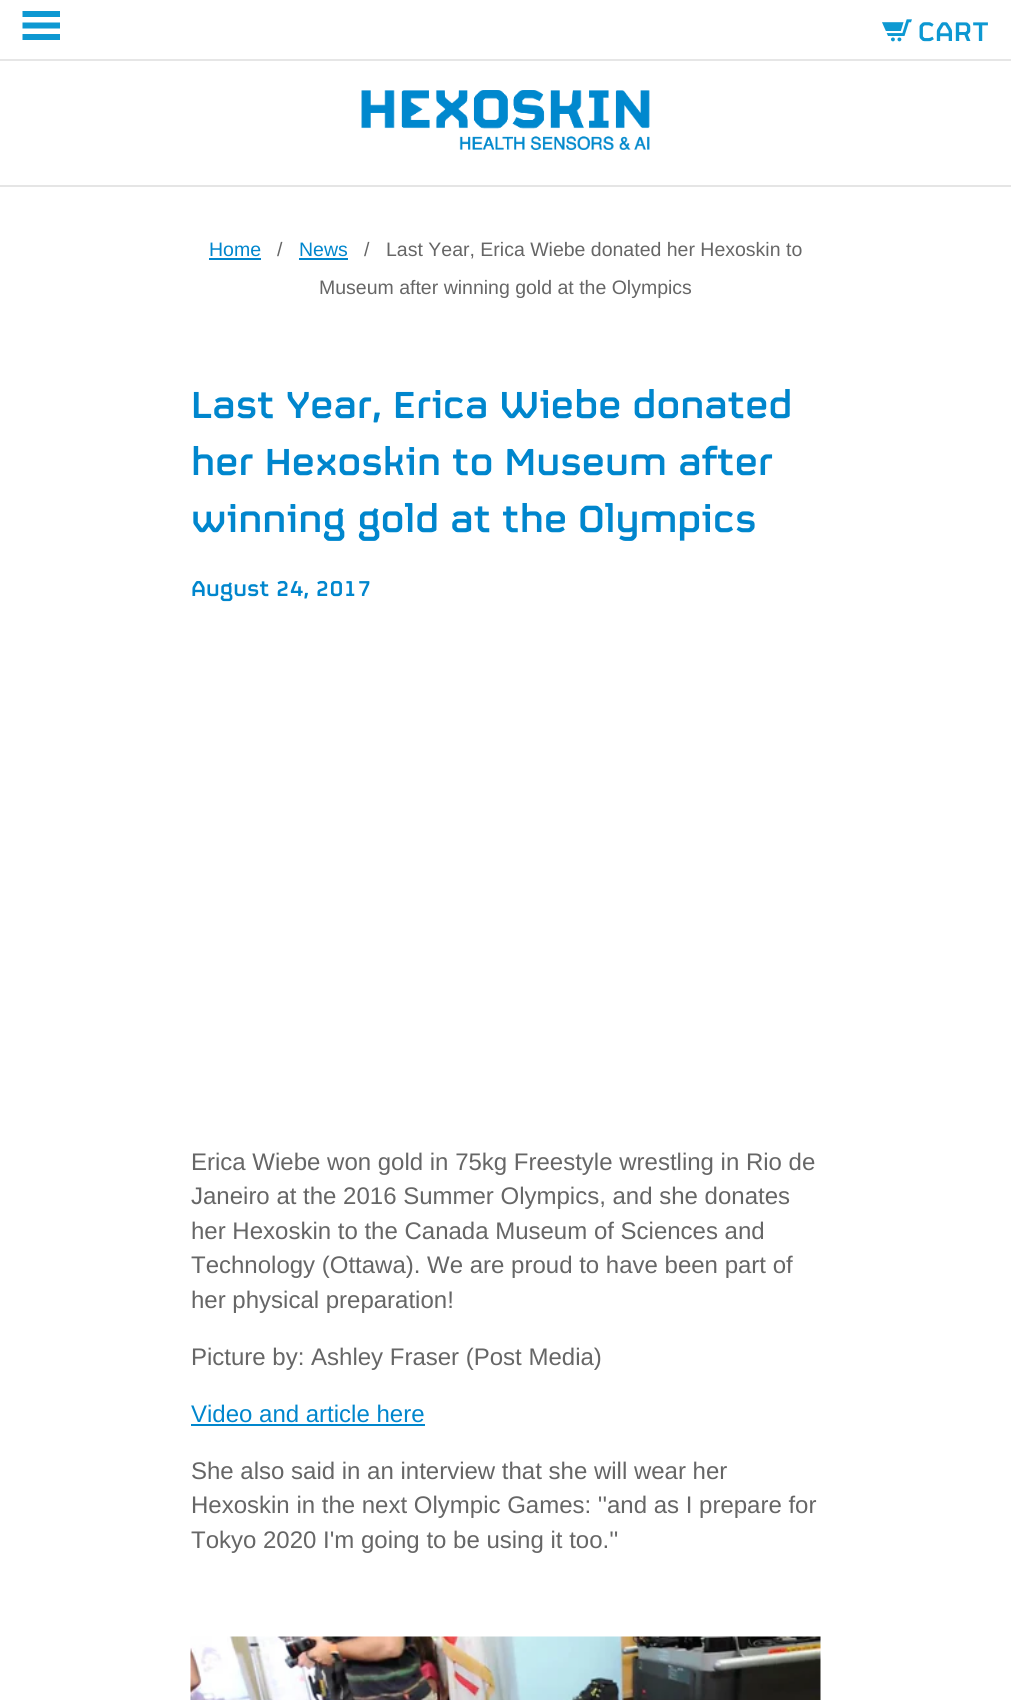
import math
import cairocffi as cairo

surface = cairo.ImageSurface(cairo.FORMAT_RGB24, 1011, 1700)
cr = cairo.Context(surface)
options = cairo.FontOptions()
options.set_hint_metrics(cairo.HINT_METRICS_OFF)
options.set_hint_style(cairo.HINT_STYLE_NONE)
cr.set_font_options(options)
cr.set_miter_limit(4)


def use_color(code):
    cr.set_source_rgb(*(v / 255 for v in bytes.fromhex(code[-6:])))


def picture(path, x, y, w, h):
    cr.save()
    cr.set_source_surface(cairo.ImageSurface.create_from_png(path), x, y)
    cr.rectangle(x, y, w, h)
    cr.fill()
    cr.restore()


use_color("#ffffff")
cr.paint()
use_color("#e6e6e6")
cr.rectangle(0, 59, 1011, 2)
cr.fill()
use_color("#0d98d2")
cr.new_path()
cr.move_to(60, 17)
cr.line_to(22.5, 17)
cr.line_to(22.5, 11)
cr.line_to(60, 11)
cr.close_path()
cr.move_to(60, 22.5)
cr.line_to(22.5, 22.5)
cr.line_to(22.5, 28.5)
cr.line_to(60, 28.5)
cr.close_path()
cr.move_to(60, 34)
cr.line_to(22.5, 34)
cr.line_to(22.5, 40)
cr.line_to(60, 40)
cr.close_path()
cr.fill()
picture("img1.png", 882, 19, 30, 23)
cr.select_font_face("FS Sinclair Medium")
cr.set_font_size(30)
cr.move_to(918, 41)
cr.show_text("CART")
use_color("#e5e5e5")
cr.rectangle(0, 185, 1011, 2)
cr.fill()
picture("img2.png", 361, 90, 289, 60)
cr.select_font_face("Liberation Sans")
cr.set_font_size(19.5)
use_color("#0086cd")
cr.move_to(209, 256)
cr.show_text("Home")
cr.rectangle(209, 258, 52, 2)
cr.fill()
use_color("#666666")
cr.move_to(277, 256)
cr.show_text("/")
use_color("#0086cd")
cr.move_to(299, 256)
cr.show_text("News")
cr.rectangle(299, 258, 49, 2)
cr.fill()
use_color("#666666")
cr.move_to(364, 256)
cr.show_text("/")
cr.move_to(386, 256)
cr.show_text("Last Year, Erica Wiebe donated her Hexoskin to")
cr.move_to(319, 294)
cr.show_text("Museum after winning gold at the Olympics")
cr.select_font_face("FS Sinclair Medium")
cr.set_font_size(42)
use_color("#0086cd")
cr.move_to(191, 418)
cr.show_text("Last Year, Erica Wiebe donated")
cr.move_to(191, 475)
cr.show_text("her Hexoskin to Museum after")
cr.move_to(191, 532)
cr.show_text("winning gold at the Olympics")
cr.set_font_size(24)
cr.move_to(191, 596)
cr.show_text("August 24, 2017")
cr.select_font_face("Liberation Sans")
use_color("#666666")
cr.move_to(191, 1170)
cr.show_text("Erica Wiebe won gold in 75kg Freestyle wrestling in Rio de")
cr.move_to(191, 1204)
cr.show_text("Janeiro at the 2016 Summer Olympics, and she donates")
cr.move_to(191, 1239)
cr.show_text("her Hexoskin to the Canada Museum of Sciences and")
cr.move_to(191, 1273)
cr.show_text("Technology (Ottawa). We are proud to have been part of")
cr.move_to(191, 1308)
cr.show_text("her physical preparation!")
cr.move_to(191, 1365)
cr.show_text("Picture by: Ashley Fraser (Post Media)")
use_color("#0086cd")
cr.move_to(191, 1422)
cr.show_text("Video and article here")
cr.rectangle(191, 1424, 234, 2)
cr.fill()
use_color("#666666")
cr.move_to(191, 1479)
cr.show_text("She also said in an interview that she will wear her")
cr.move_to(191, 1513)
cr.show_text("Hexoskin in the next Olympic Games: ''and as I prepare for")
cr.move_to(191, 1548)
cr.show_text("Tokyo 2020 I'm going to be using it too.''")
picture("img3.png", 190, 1636, 631, 64)
surface.write_to_png("result.png")
